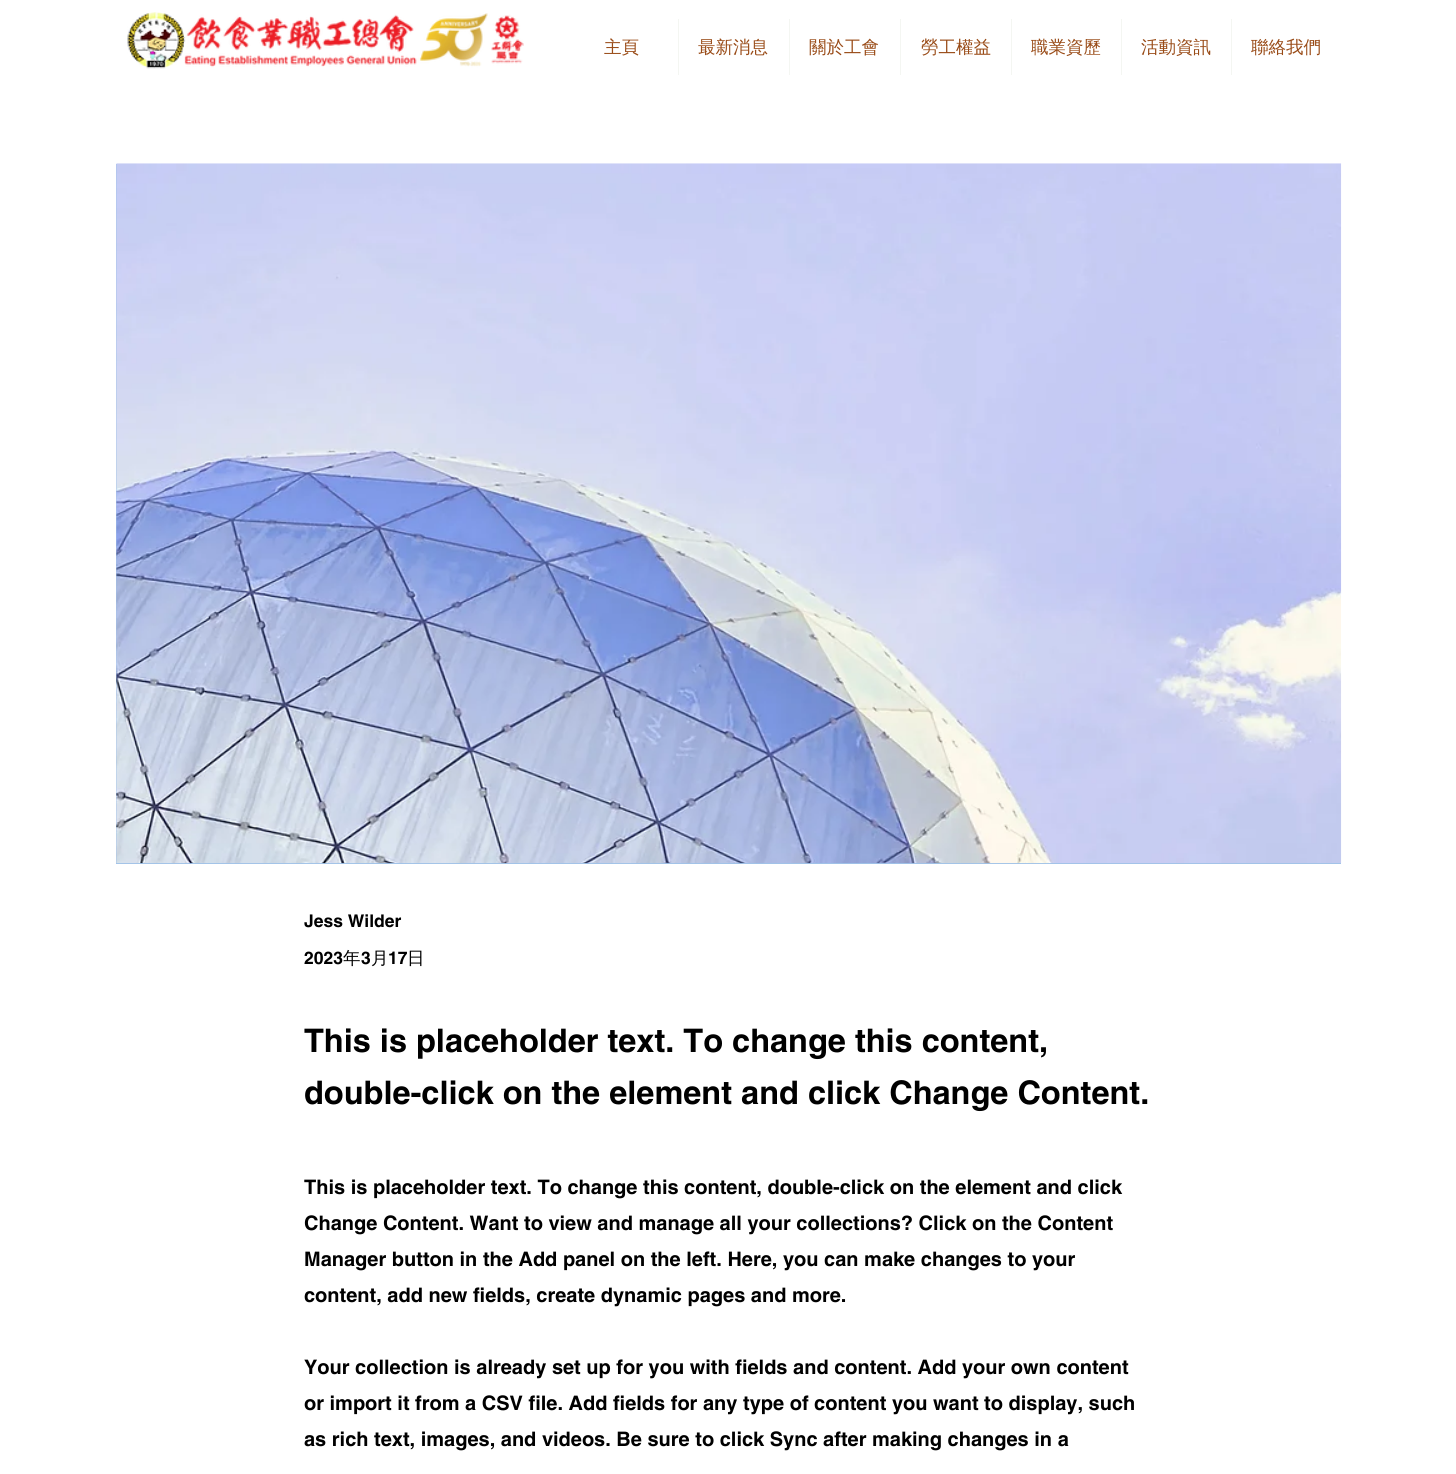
import math
import cairocffi as cairo

surface = cairo.ImageSurface(cairo.FORMAT_RGB24, 1456, 1474)
cr = cairo.Context(surface)
options = cairo.FontOptions()
options.set_hint_metrics(cairo.HINT_METRICS_OFF)
options.set_hint_style(cairo.HINT_STYLE_NONE)
cr.set_font_options(options)
cr.set_miter_limit(4)


def use_color(code):
    cr.set_source_rgb(*(v / 255 for v in bytes.fromhex(code[-6:])))


def picture(path, x, y, w, h):
    cr.save()
    cr.set_source_surface(cairo.ImageSurface.create_from_png(path), x, y)
    cr.rectangle(x, y, w, h)
    cr.fill()
    cr.restore()


use_color("#ffffff")
cr.paint()
picture("img1.png", 127, 12, 397, 57)
cr.select_font_face("WenQuanYi Zen Hei Medium")
cr.set_font_size(17.5)
use_color("#994b17")
cr.move_to(604, 53)
cr.show_text("主頁")
use_color("#f4f6f2")
cr.rectangle(678, 19, 1, 56)
cr.fill()
use_color("#994b17")
cr.move_to(698, 53)
cr.show_text("最新消息")
use_color("#f4f6f2")
cr.rectangle(789, 19, 1, 56)
cr.fill()
use_color("#994b17")
cr.move_to(809, 53)
cr.show_text("關於工會")
use_color("#f4f6f2")
cr.rectangle(900, 19, 1, 56)
cr.fill()
use_color("#994b17")
cr.move_to(921, 53)
cr.show_text("勞工權益")
use_color("#f4f6f2")
cr.rectangle(1011, 19, 1, 56)
cr.fill()
use_color("#994b17")
cr.move_to(1031, 53)
cr.show_text("職業資歷")
use_color("#f4f6f2")
cr.rectangle(1121, 19, 1, 56)
cr.fill()
use_color("#994b17")
cr.move_to(1141, 53)
cr.show_text("活動資訊")
use_color("#f4f6f2")
cr.rectangle(1231, 19, 1, 56)
cr.fill()
use_color("#994b17")
cr.move_to(1251, 53)
cr.show_text("聯絡我們")
use_color("#a0c2e8")
cr.rectangle(116, 164, 1225, 700)
cr.fill()
picture("img2.png", 116, 163, 1226, 701)
cr.select_font_face("helvetica", cairo.FONT_SLANT_NORMAL, cairo.FONT_WEIGHT_BOLD)
use_color("#000000")
cr.move_to(304, 927)
cr.show_text("Jess Wilder")
cr.move_to(304, 964)
cr.show_text("2023")
cr.select_font_face("WenQuanYi Zen Hei Medium")
cr.move_to(343, 964)
cr.show_text("年")
cr.select_font_face("helvetica", cairo.FONT_SLANT_NORMAL, cairo.FONT_WEIGHT_BOLD)
cr.move_to(361, 964)
cr.show_text("3")
cr.select_font_face("WenQuanYi Zen Hei Medium")
cr.move_to(371, 964)
cr.show_text("月")
cr.select_font_face("helvetica", cairo.FONT_SLANT_NORMAL, cairo.FONT_WEIGHT_BOLD)
cr.move_to(388, 964)
cr.show_text("17")
cr.select_font_face("WenQuanYi Zen Hei Medium")
cr.move_to(407, 964)
cr.show_text("日")
cr.select_font_face("helvetica", cairo.FONT_SLANT_NORMAL, cairo.FONT_WEIGHT_BOLD)
cr.set_font_size(32.5)
cr.move_to(304, 1052)
cr.show_text("This is placeholder text. To change this content,")
cr.move_to(304, 1104)
cr.show_text("double-click on the element and click Change Content.")
cr.set_font_size(20)
cr.move_to(304, 1194)
cr.show_text("This is placeholder text. To change this content, double-click on the element and click")
cr.move_to(304, 1230)
cr.show_text("Change Content. Want to view and manage all your collections? Click on the Content")
cr.move_to(304, 1266)
cr.show_text("Manager button in the Add panel on the left. Here, you can make changes to your")
cr.move_to(304, 1302)
cr.show_text("content, add new fields, create dynamic pages and more.")
cr.move_to(304, 1374)
cr.show_text("Your collection is already set up for you with fields and content. Add your own content")
cr.move_to(304, 1410)
cr.show_text("or import it from a CSV file. Add fields for any type of content you want to display, such")
cr.move_to(304, 1446)
cr.show_text("as rich text, images, and videos. Be sure to click Sync after making changes in a")
surface.write_to_png("result.png")
